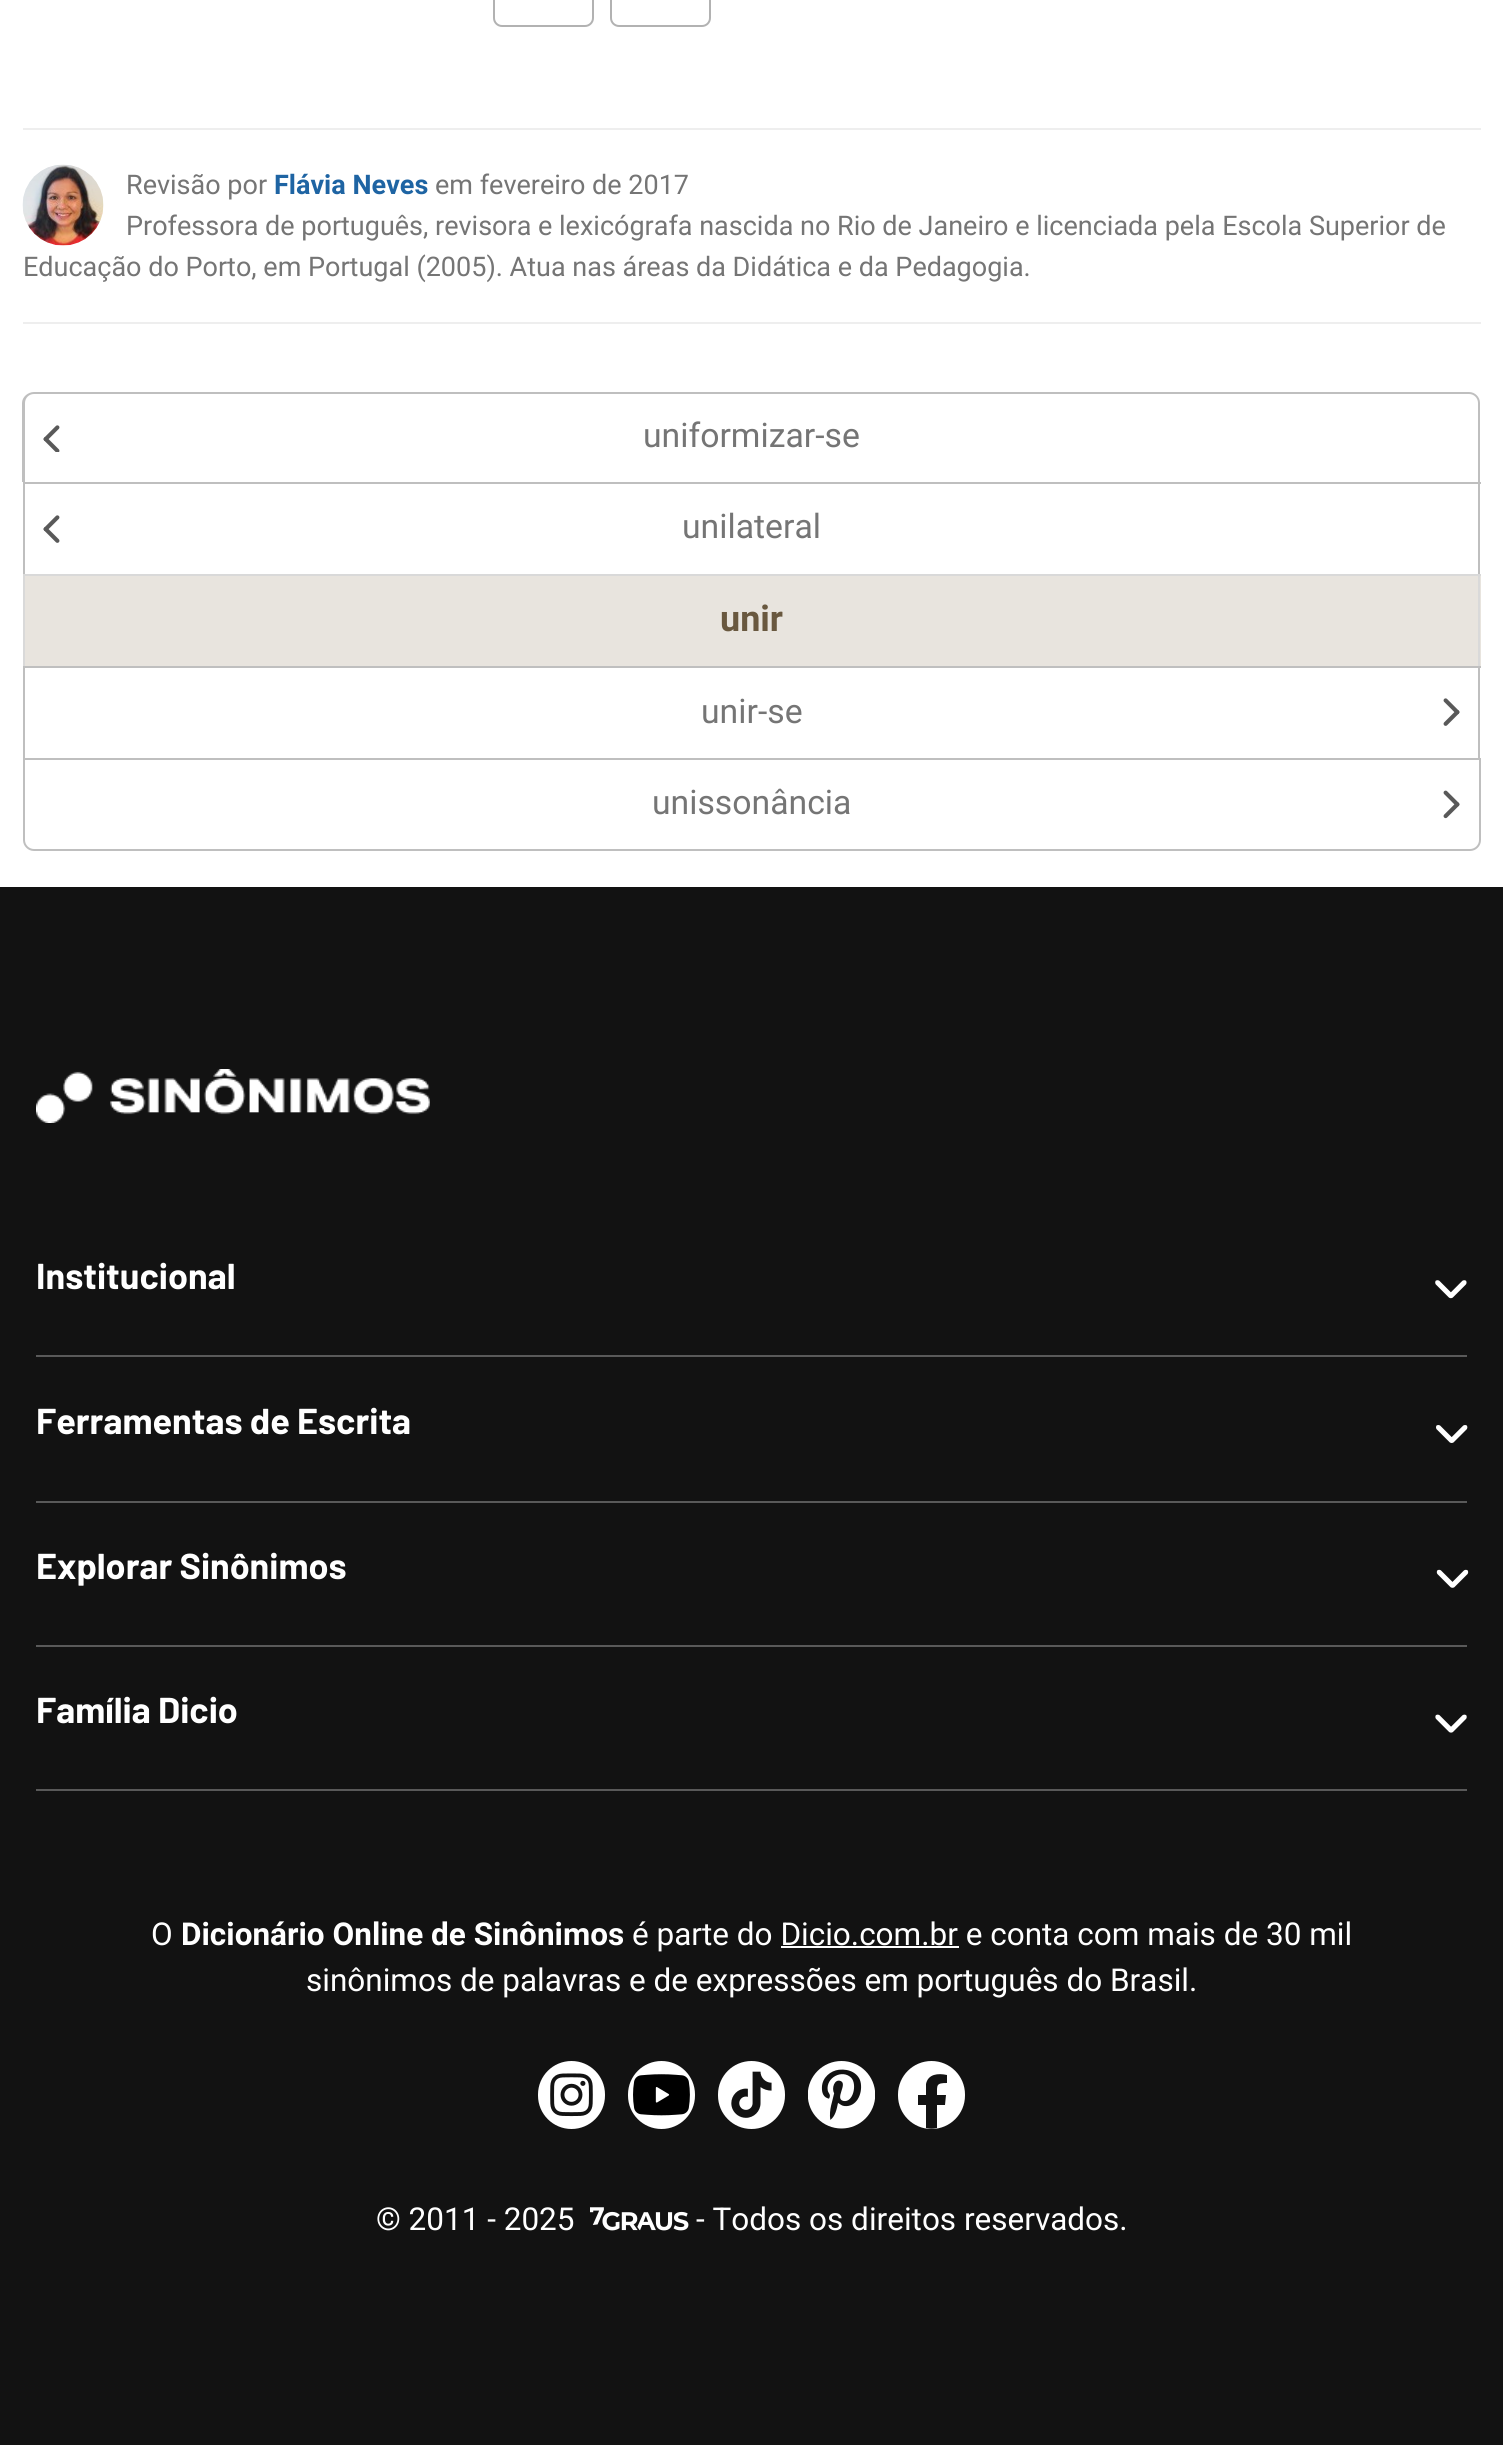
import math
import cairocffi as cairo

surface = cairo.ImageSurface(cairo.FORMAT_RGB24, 1503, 2445)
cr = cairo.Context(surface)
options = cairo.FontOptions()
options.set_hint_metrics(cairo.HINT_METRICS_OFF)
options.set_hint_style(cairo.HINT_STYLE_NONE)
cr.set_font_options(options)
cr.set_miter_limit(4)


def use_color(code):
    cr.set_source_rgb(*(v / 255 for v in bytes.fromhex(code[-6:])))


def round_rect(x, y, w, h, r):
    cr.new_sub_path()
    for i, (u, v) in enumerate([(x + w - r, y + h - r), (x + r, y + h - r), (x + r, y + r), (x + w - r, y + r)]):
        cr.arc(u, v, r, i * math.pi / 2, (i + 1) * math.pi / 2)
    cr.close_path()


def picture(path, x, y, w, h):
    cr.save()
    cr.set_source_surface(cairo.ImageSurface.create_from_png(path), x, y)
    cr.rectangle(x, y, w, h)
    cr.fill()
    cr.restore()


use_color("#ffffff")
cr.paint()
round_rect(494, -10, 99, 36, 8)
use_color("#b2b2b2")
cr.stroke()
round_rect(611, -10, 99, 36, 8)
cr.stroke()
use_color("#eeeeee")
cr.rectangle(23, 128, 1458, 2)
cr.fill()
cr.rectangle(23, 322, 1458, 2)
cr.fill()
picture("img1.png", 22, 164, 82, 82)
cr.select_font_face("Roboto")
cr.set_font_size(27)
use_color("#757575")
cr.move_to(126, 194)
cr.show_text("Revisão por")
cr.select_font_face("Roboto", cairo.FONT_SLANT_NORMAL, cairo.FONT_WEIGHT_BOLD)
use_color("#1e64a3")
cr.move_to(274, 194)
cr.show_text("Flávia Neves")
cr.select_font_face("Roboto")
use_color("#757575")
cr.move_to(435, 194)
cr.show_text("em fevereiro de 2017")
cr.move_to(126, 235)
cr.show_text("Professora de português, revisora e lexicógrafa nascida no Rio de Janeiro e licenciada pela Escola Superior de")
cr.move_to(23, 276)
cr.show_text("Educação do Porto, em Portugal (2005). Atua nas áreas da Didática e da Pedagogia.")
use_color("#bfbfbf")
cr.set_fill_rule(cairo.FILL_RULE_EVEN_ODD)
cr.new_path()
cr.move_to(34, 392)
cr.line_to(1469, 392)
cr.curve_to(1475, 392, 1480, 397, 1480, 403)
cr.line_to(1480, 482)
cr.line_to(22, 482)
cr.line_to(22, 403)
cr.curve_to(22, 397, 28, 392, 34, 392)
cr.close_path()
cr.move_to(34, 394)
cr.line_to(1469, 394)
cr.curve_to(1474, 394, 1478, 398, 1478, 403)
cr.line_to(1478, 482)
cr.line_to(25, 482)
cr.line_to(25, 403)
cr.curve_to(25, 398, 29, 394, 34, 394)
cr.close_path()
cr.fill()
picture("img2.png", 43, 425, 17, 27)
cr.set_font_size(33.75)
use_color("#757575")
cr.move_to(643, 447)
cr.show_text("uniformizar-se")
use_color("#bfbfbf")
cr.rectangle(23, 482, 1458, 2)
cr.fill()
cr.rectangle(1478, 482, 2, 92)
cr.fill()
cr.rectangle(23, 482, 2, 92)
cr.fill()
picture("img3.png", 43, 515, 17, 28)
use_color("#757575")
cr.move_to(682, 538)
cr.show_text("unilateral")
use_color("#e8e4de")
cr.rectangle(25, 576, 1456, 90)
cr.fill()
use_color("#d9d9d9")
cr.rectangle(23, 574, 1458, 2)
cr.fill()
cr.rectangle(1478, 574, 2, 92)
cr.fill()
cr.rectangle(23, 574, 2, 92)
cr.fill()
cr.select_font_face("Roboto", cairo.FONT_SLANT_NORMAL, cairo.FONT_WEIGHT_BOLD)
cr.set_font_size(36)
use_color("#69583f")
cr.move_to(720, 631)
cr.show_text("unir")
use_color("#bfbfbf")
cr.rectangle(23, 666, 1458, 2)
cr.fill()
cr.rectangle(1478, 666, 2, 92)
cr.fill()
cr.rectangle(23, 666, 2, 92)
cr.fill()
cr.select_font_face("Roboto")
cr.set_font_size(33.75)
use_color("#757575")
cr.move_to(701, 723)
cr.show_text("unir-se")
picture("img4.png", 1443, 698, 17, 28)
cr.new_path()
cr.move_to(24, 759)
cr.line_to(1480, 759)
cr.line_to(1480, 840)
cr.curve_to(1480, 845.5, 1475.5, 850, 1470, 850)
cr.line_to(34, 850)
cr.curve_to(28.5, 850, 24, 845.5, 24, 840)
cr.close_path()
use_color("#bfbfbf")
cr.stroke()
use_color("#757575")
cr.move_to(652, 814)
cr.show_text("unissonância")
picture("img5.png", 1443, 790, 17, 29)
use_color("#121212")
cr.rectangle(0, 887, 1503, 1558)
cr.fill()
picture("img6.png", 36, 1069, 394, 54)
use_color("#595959")
cr.rectangle(36, 1355, 1431, 2)
cr.fill()
cr.select_font_face("Barlow", cairo.FONT_SLANT_NORMAL, cairo.FONT_WEIGHT_BOLD)
cr.set_font_size(36)
use_color("#ffffff")
cr.move_to(36, 1289)
cr.show_text("Institucional")
picture("img7.png", 1435, 1280, 32, 19)
use_color("#595959")
cr.rectangle(36, 1501, 1431, 2)
cr.fill()
use_color("#ffffff")
cr.move_to(36, 1434)
cr.show_text("Ferramentas de Escrita")
picture("img8.png", 1436, 1425, 32, 18)
use_color("#595959")
cr.rectangle(36, 1645, 1431, 2)
cr.fill()
use_color("#ffffff")
cr.move_to(36, 1579)
cr.show_text("Explorar Sinônimos")
picture("img9.png", 1436, 1569, 33, 19)
use_color("#595959")
cr.rectangle(36, 1789, 1431, 2)
cr.fill()
use_color("#ffffff")
cr.move_to(36, 1723)
cr.show_text("Família Dicio")
picture("img10.png", 1435, 1714, 32, 19)
cr.select_font_face("Roboto")
cr.set_font_size(31.5)
cr.move_to(151, 1945)
cr.show_text("O")
cr.select_font_face("Roboto", cairo.FONT_SLANT_NORMAL, cairo.FONT_WEIGHT_BOLD)
cr.move_to(181, 1945)
cr.show_text("Dicionário Online de Sinônimos")
cr.select_font_face("Roboto")
cr.move_to(632, 1945)
cr.show_text("é parte do Dicio.com.br e conta com mais de 30 mil")
cr.rectangle(781, 1946, 178, 2)
cr.fill()
cr.move_to(306, 1991)
cr.show_text("sinônimos de palavras e de expressões em português do Brasil.")
round_rect(538, 2061, 67, 68, 33.5)
cr.fill()
picture("img11.png", 550, 2073, 43, 44)
round_rect(628, 2061, 67, 68, 33.5)
cr.fill()
picture("img12.png", 633, 2074, 57, 42)
round_rect(718, 2061, 67, 68, 33.5)
cr.fill()
picture("img13.png", 731, 2071, 41, 47)
picture("img14.png", 808, 2061, 67, 68)
round_rect(898, 2061, 67, 68, 33.5)
cr.fill()
use_color("#121212")
cr.set_fill_rule(cairo.FILL_RULE_WINDING)
cr.new_path()
cr.move_to(945, 2105)
cr.line_to(946, 2095)
cr.line_to(937, 2095)
cr.curve_to(937, 2085, 936, 2083, 947, 2083)
cr.line_to(947, 2075)
cr.curve_to(938, 2073, 928, 2074, 926, 2084)
cr.line_to(926, 2095)
cr.line_to(918, 2095)
cr.line_to(918, 2105)
cr.line_to(926, 2105)
cr.line_to(926, 2128)
cr.curve_to(930, 2129, 933, 2129, 937, 2128)
cr.line_to(937, 2105)
cr.close_path()
cr.fill()
use_color("#ffffff")
cr.move_to(376, 2230)
cr.show_text("© 2011 - 2025")
picture("img15.png", 590, 2207, 99, 24)
cr.move_to(696, 2230)
cr.show_text("- Todos os direitos reservados.")
surface.write_to_png("result.png")
